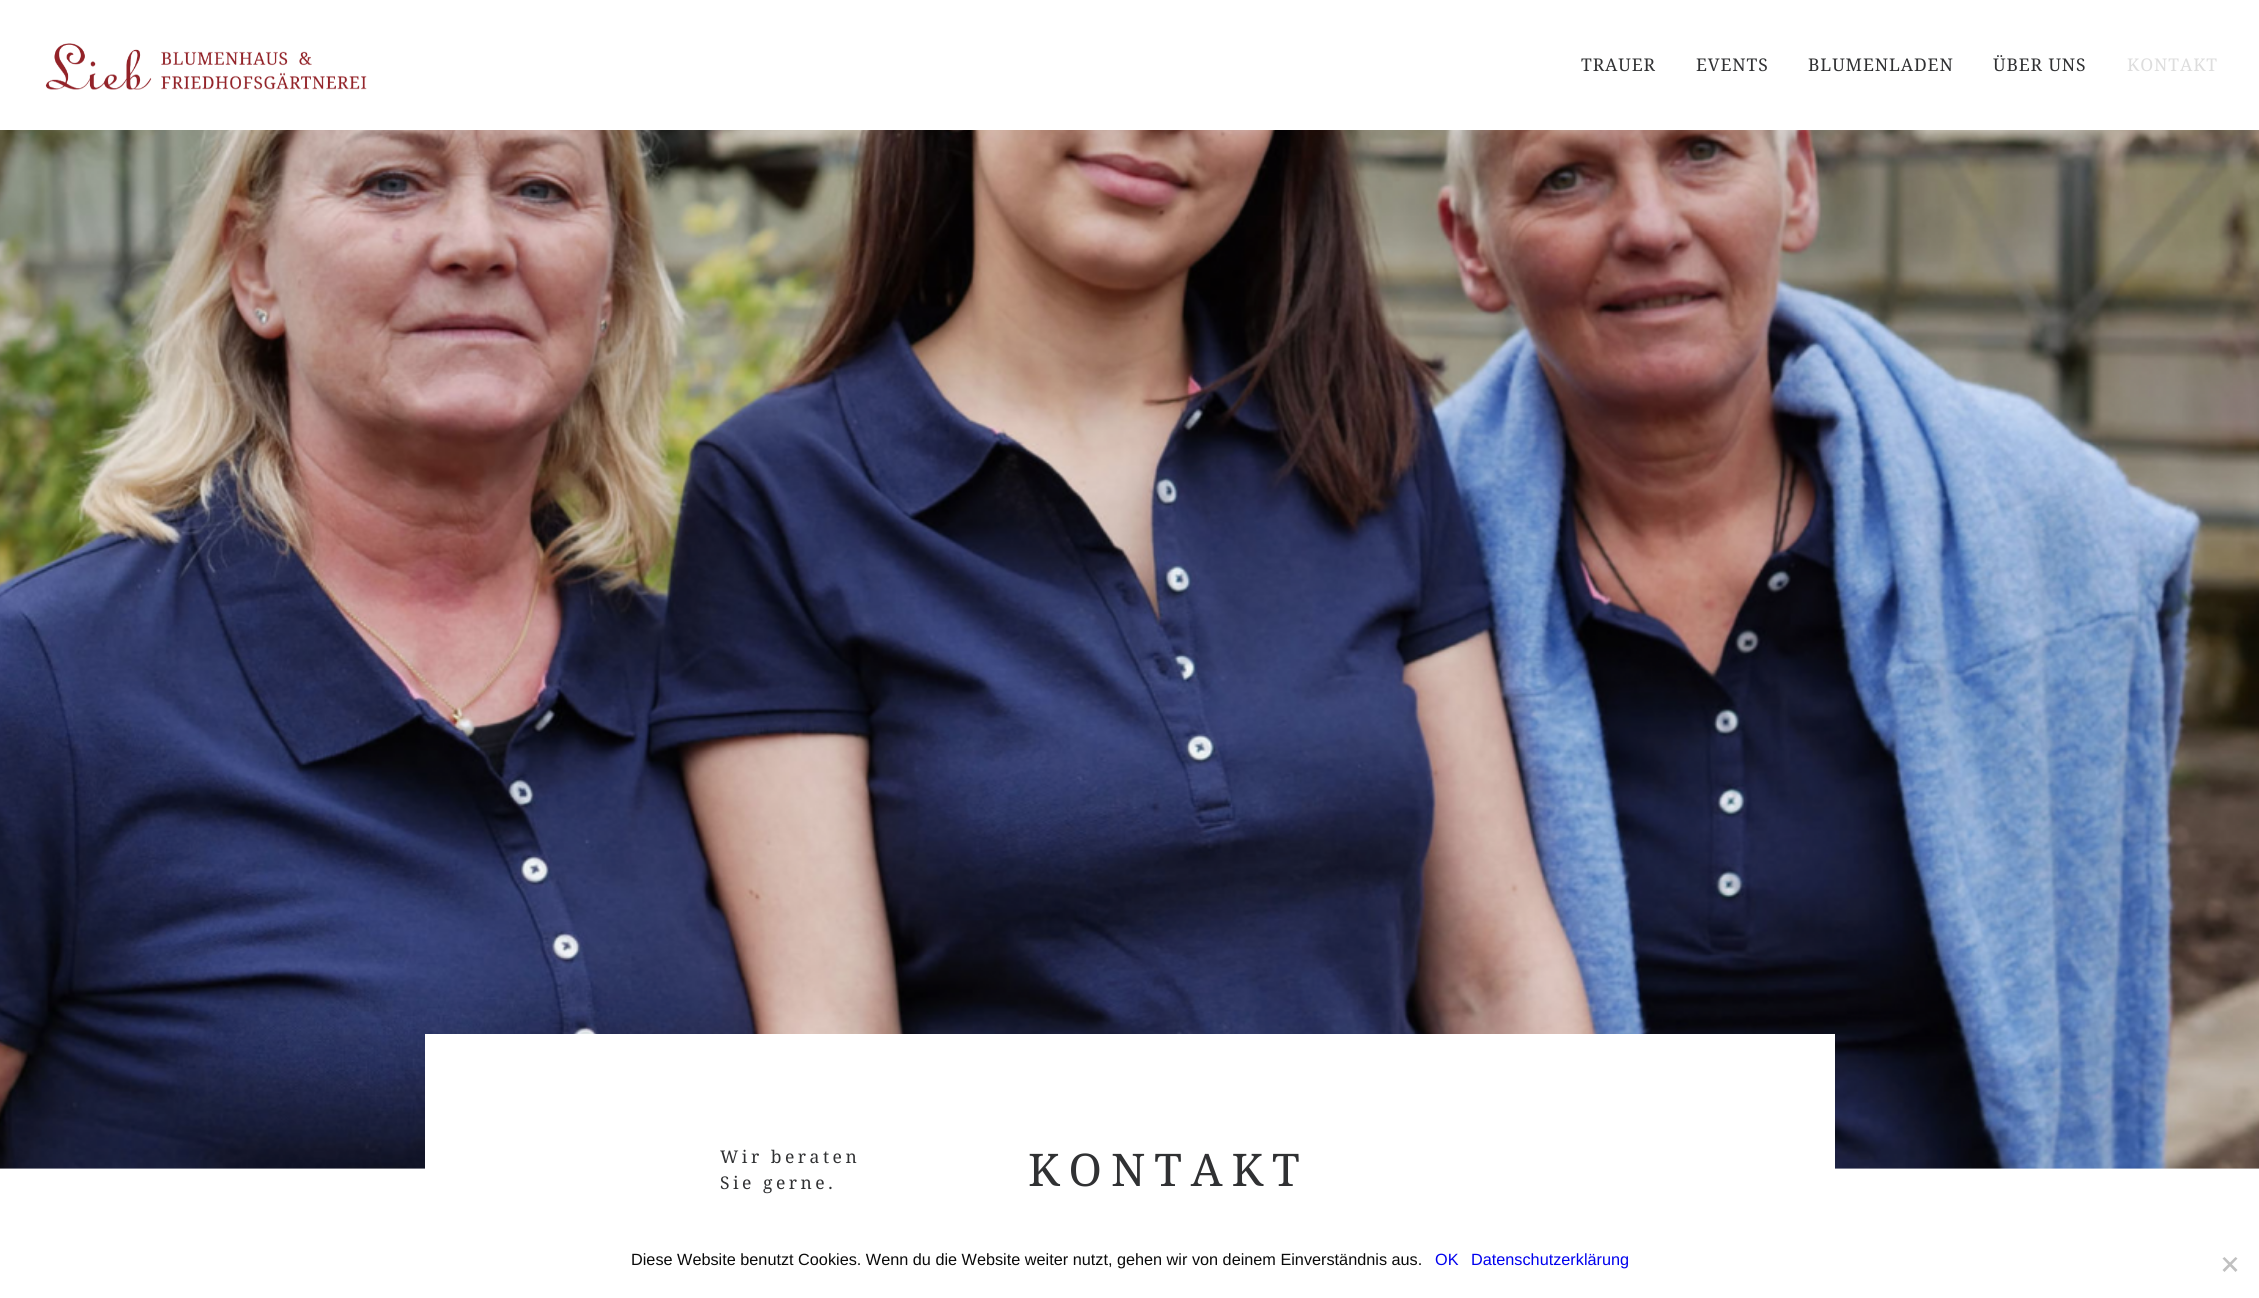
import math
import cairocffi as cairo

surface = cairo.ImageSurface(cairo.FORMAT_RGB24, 2259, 1298)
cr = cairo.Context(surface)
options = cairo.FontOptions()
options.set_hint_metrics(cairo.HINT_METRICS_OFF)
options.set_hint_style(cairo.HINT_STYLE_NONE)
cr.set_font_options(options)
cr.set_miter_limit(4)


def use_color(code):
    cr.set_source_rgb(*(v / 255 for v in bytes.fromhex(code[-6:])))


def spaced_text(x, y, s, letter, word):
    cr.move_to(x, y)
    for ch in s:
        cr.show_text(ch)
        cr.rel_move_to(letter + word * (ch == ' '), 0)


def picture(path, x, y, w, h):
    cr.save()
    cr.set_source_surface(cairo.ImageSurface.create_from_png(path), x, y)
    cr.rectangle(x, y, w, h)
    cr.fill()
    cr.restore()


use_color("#f7f7f7")
cr.paint()
use_color("#ffffff")
cr.rectangle(0, 0, 2259, 130)
cr.fill()
picture("img1.png", 45, 43, 322, 47)
cr.select_font_face("Noto Serif")
cr.set_font_size(17.5)
use_color("#303133")
spaced_text(1581, 71, "TRAUER", 0.9, 0)
spaced_text(1696, 71, "EVENTS", 0.9, 0)
spaced_text(1808, 71, "BLUMENLADEN", 0.9, 0)
spaced_text(1993, 71, "ÜBER UNS", 0.9, 0)
use_color("#dddddd")
spaced_text(2127, 71, "KONTAKT", 0.9, 0)
picture("img2.png", 0, 130, 2259, 1039)
use_color("#ffffff")
cr.rectangle(0, 1169, 2259, 129)
cr.fill()
cr.rectangle(425, 1034, 1410, 135)
cr.fill()
use_color("#303133")
spaced_text(720, 1163, "Wir beraten", 3.5, 0)
spaced_text(720, 1189, "Sie gerne.", 3.5, 0)
cr.set_font_size(45)
spaced_text(1028, 1186, "KONTAKT", 9, 0)
cr.select_font_face("Liberation Sans")
cr.set_font_size(16.25)
use_color("#0a0a0a")
cr.move_to(631, 1265)
cr.show_text("Diese Website benutzt Cookies. Wenn du die Website weiter nutzt, gehen wir von deinem Einverständnis aus.")
use_color("#0000ee")
cr.move_to(1435, 1265)
cr.show_text("OK")
cr.move_to(1471, 1265)
cr.show_text("Datenschutzerklärung")
use_color("#c0c0c0")
cr.new_path()
cr.move_to(2235.5, 1257)
cr.line_to(2237.5, 1258.5)
cr.line_to(2224.5, 1272)
cr.line_to(2222.5, 1270)
cr.close_path()
cr.fill()
cr.new_path()
cr.move_to(2222.5, 1258.5)
cr.line_to(2224.5, 1257)
cr.line_to(2237.5, 1270)
cr.line_to(2235.5, 1272)
cr.close_path()
cr.fill()
surface.write_to_png("result.png")
